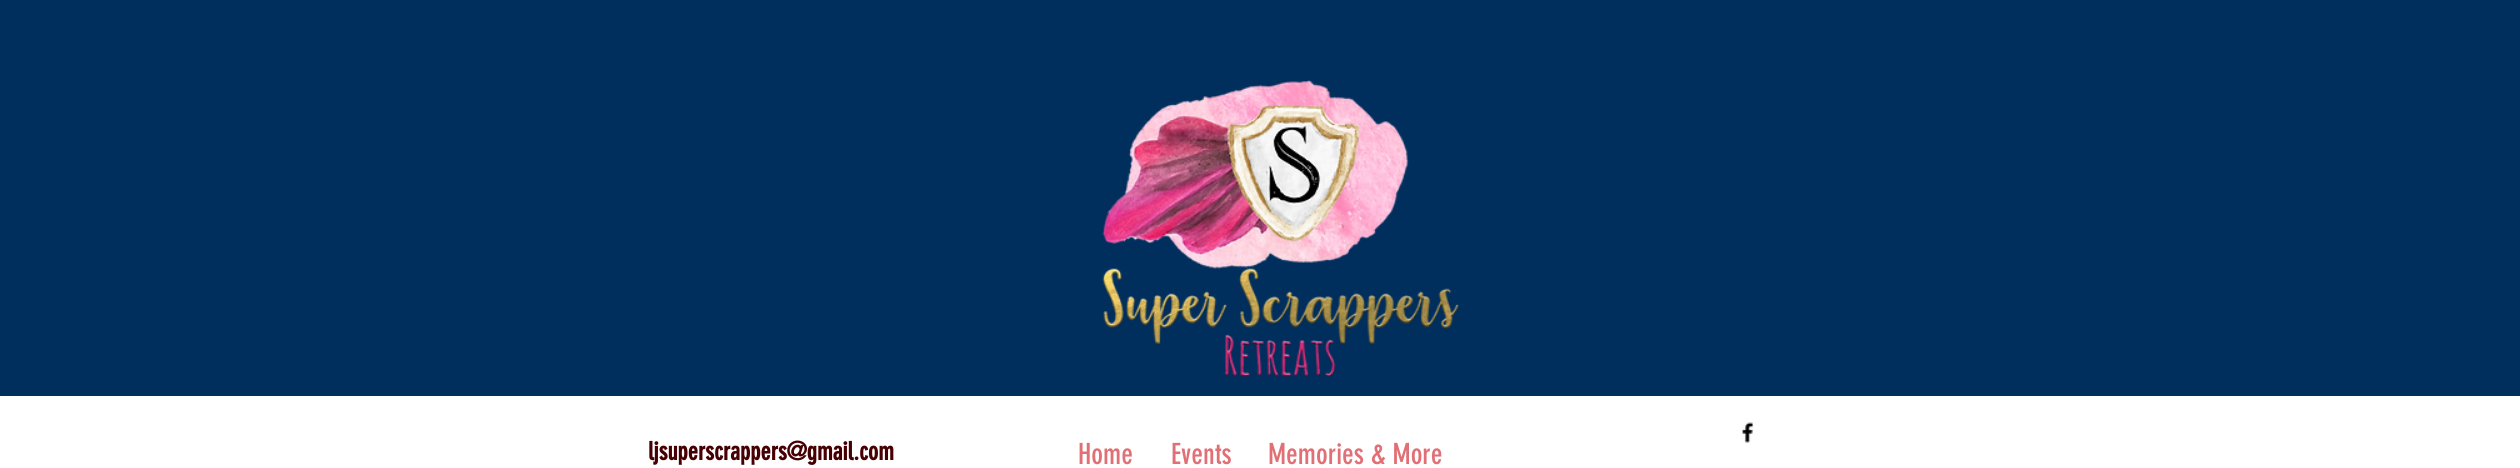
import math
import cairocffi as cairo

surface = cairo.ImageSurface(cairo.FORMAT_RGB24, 2520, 468)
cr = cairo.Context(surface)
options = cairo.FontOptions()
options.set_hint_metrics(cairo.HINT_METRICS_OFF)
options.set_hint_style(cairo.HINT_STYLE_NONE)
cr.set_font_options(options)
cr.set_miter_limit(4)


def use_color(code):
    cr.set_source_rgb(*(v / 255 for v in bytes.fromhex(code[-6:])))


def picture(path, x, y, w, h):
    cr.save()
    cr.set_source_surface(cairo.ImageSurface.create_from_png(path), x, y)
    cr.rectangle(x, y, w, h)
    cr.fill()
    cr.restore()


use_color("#002e5d")
cr.paint()
picture("img1.png", 1102, 80, 357, 297)
use_color("#ffffff")
cr.rectangle(0, 396, 2520, 72)
cr.fill()
picture("img2.png", 1742, 422, 12, 21)
cr.select_font_face("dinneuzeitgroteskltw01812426", cairo.FONT_SLANT_NORMAL, cairo.FONT_WEIGHT_BOLD)
cr.set_font_size(25)
use_color("#460003")
cr.move_to(648, 460)
cr.show_text("ljsuperscrappers@gmail.com")
cr.select_font_face("dinneuzeitgroteskltw01812426")
cr.set_font_size(28.75)
use_color("#e07076")
cr.move_to(1078, 464)
cr.show_text("Home")
cr.move_to(1171, 464)
cr.show_text("Events")
cr.move_to(1268, 464)
cr.show_text("Memories & More")
surface.write_to_png("result.png")
